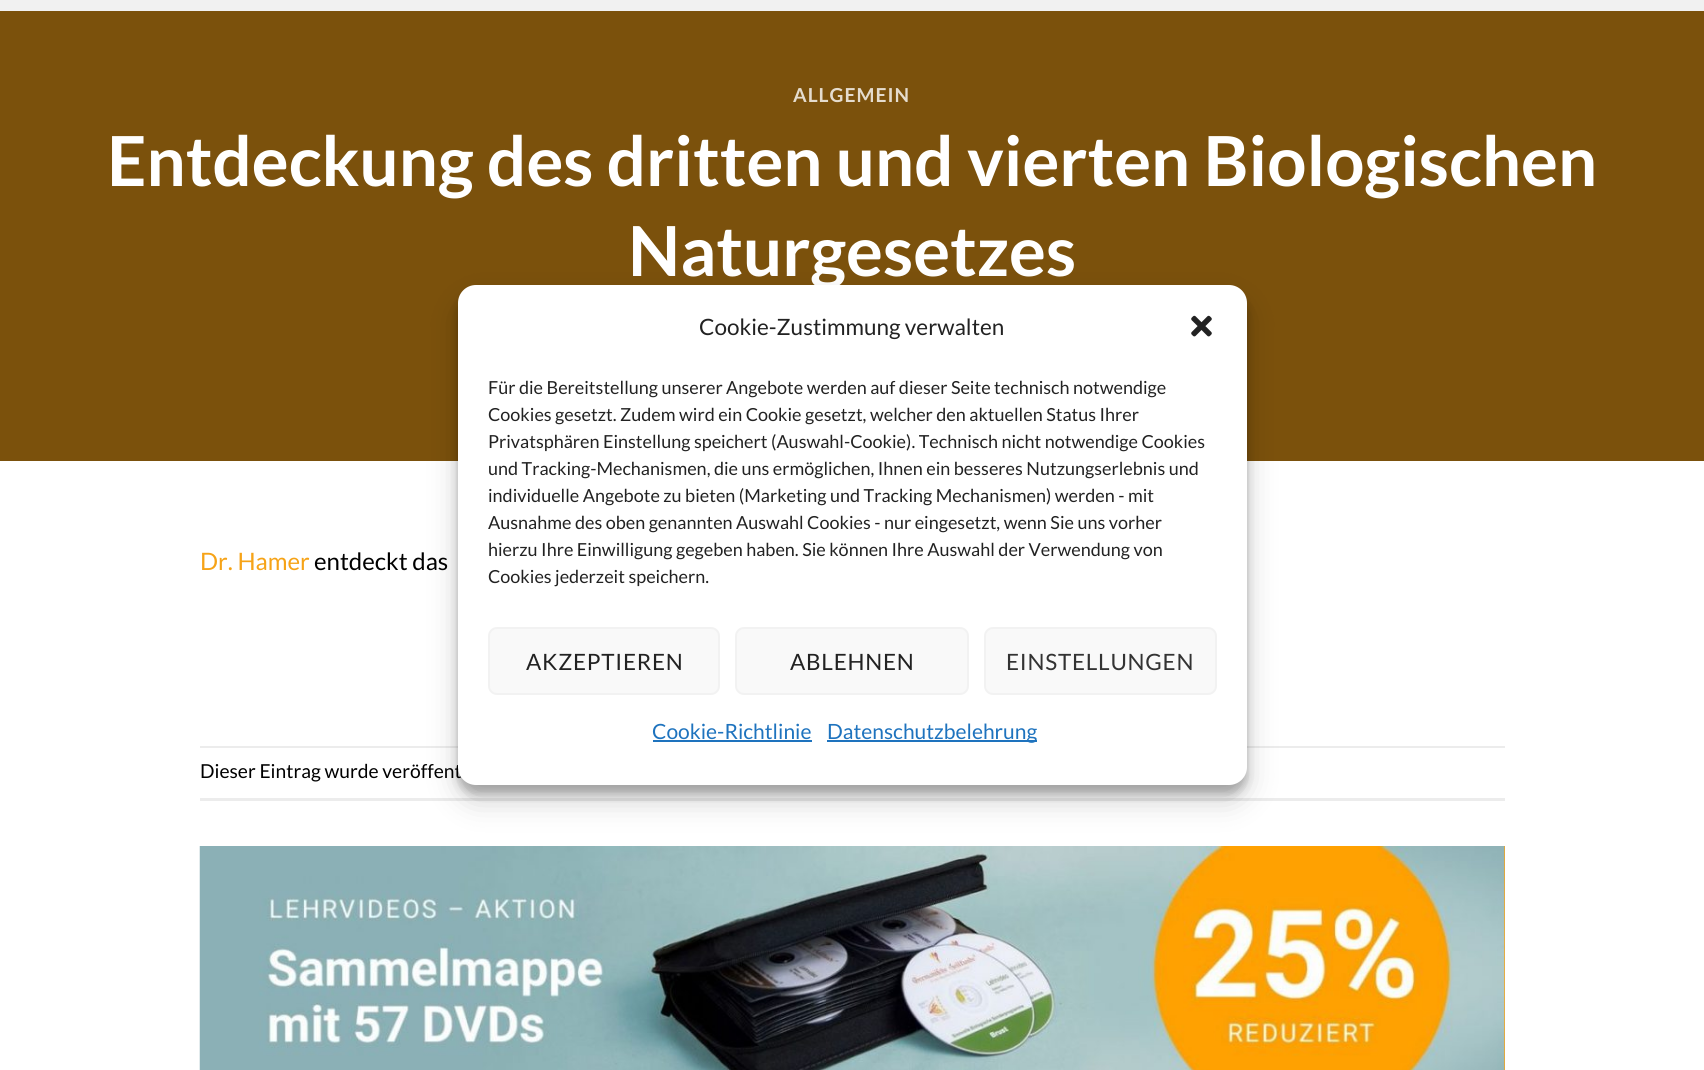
import math
import cairocffi as cairo

surface = cairo.ImageSurface(cairo.FORMAT_RGB24, 1704, 1070)
cr = cairo.Context(surface)
options = cairo.FontOptions()
options.set_hint_metrics(cairo.HINT_METRICS_OFF)
options.set_hint_style(cairo.HINT_STYLE_NONE)
cr.set_font_options(options)
cr.set_miter_limit(4)


def use_color(code):
    cr.set_source_rgb(*(v / 255 for v in bytes.fromhex(code[-6:])))


def spaced_text(x, y, s, letter, word):
    cr.move_to(x, y)
    for ch in s:
        cr.show_text(ch)
        cr.rel_move_to(letter + word * (ch == ' '), 0)


def round_rect(x, y, w, h, r):
    cr.new_sub_path()
    for i, (u, v) in enumerate([(x + w - r, y + h - r), (x + r, y + h - r), (x + r, y + r), (x + w - r, y + r)]):
        cr.arc(u, v, r, i * math.pi / 2, (i + 1) * math.pi / 2)
    cr.close_path()


def shadow(x, y, w, h, r, blur, alpha):
    cr.push_group_with_content(cairo.CONTENT_ALPHA)
    cr.set_operator(cairo.OPERATOR_SOURCE)
    for i in range(15, -16, -2):
        e = blur * i / 6
        if min(w, h) + 2 * e > 0:
            cr.set_source_rgba(0, 0, 0, alpha * math.erfc((i - 1) / 8.5) / 2)
            round_rect(x - e, y - e, w + 2 * e, h + 2 * e, max(0, min(r + e + blur * .6, min(w, h) / 2 + e)))
            cr.fill()
    cr.mask(cr.pop_group())


def picture(path, x, y, w, h):
    cr.save()
    cr.set_source_surface(cairo.ImageSurface.create_from_png(path), x, y)
    cr.rectangle(x, y, w, h)
    cr.fill()
    cr.restore()


use_color("#ffffff")
cr.paint()
use_color("#f1f1f1")
cr.rectangle(0, 0, 1704, 11)
cr.fill()
use_color("#7b510c")
cr.rectangle(0, 11, 1704, 450)
cr.fill()
cr.select_font_face("Lato", cairo.FONT_SLANT_NORMAL, cairo.FONT_WEIGHT_BOLD)
cr.set_font_size(19.25)
use_color("#e5dcce")
spaced_text(793, 102, "ALLGEMEIN", 1, 0)
cr.set_font_size(69)
use_color("#ffffff")
cr.move_to(107, 186)
cr.show_text("Entdeckung des dritten und vierten Biologischen")
cr.move_to(628, 276)
cr.show_text("Naturgesetzes")
cr.select_font_face("Lato")
cr.set_font_size(24)
use_color("#f6a317")
cr.move_to(200, 570)
cr.show_text("Dr. Hamer")
use_color("#000000")
cr.move_to(314, 570)
cr.show_text("entdeckt das")
use_color("#ececec")
cr.rectangle(200, 746, 1305, 2)
cr.fill()
cr.rectangle(200, 798, 1305, 3)
cr.fill()
cr.set_font_size(19.25)
use_color("#000000")
cr.move_to(200, 778)
cr.show_text("Dieser Eintrag wurde veröffent")
use_color("#f6a317")
cr.rectangle(1504, 846, 1, 224)
cr.fill()
picture("img1.png", 199, 846, 1306, 224)
use_color("#000000")
shadow(458, 294, 789, 500, 18, 4.5, 0.23)
shadow(458, 300, 789, 500, 18, 15, 0.19)
use_color("#ffffff")
round_rect(458, 285, 789, 500, 18)
cr.fill()
cr.set_font_size(22.5)
use_color("#222222")
cr.move_to(699, 335)
cr.show_text("Cookie-Zustimmung verwalten")
picture("img2.png", 1191, 315, 21, 22)
cr.set_font_size(18)
cr.move_to(488, 394)
cr.show_text("Für die Bereitstellung unserer Angebote werden auf dieser Seite technisch notwendige")
cr.move_to(488, 421)
cr.show_text("Cookies gesetzt. Zudem wird ein Cookie gesetzt, welcher den aktuellen Status Ihrer")
cr.move_to(488, 448)
cr.show_text("Privatsphären Einstellung speichert (Auswahl-Cookie). Technisch nicht notwendige Cookies")
cr.move_to(488, 475)
cr.show_text("und Tracking-Mechanismen, die uns ermöglichen, Ihnen ein besseres Nutzungserlebnis und")
cr.move_to(488, 502)
cr.show_text("individuelle Angebote zu bieten (Marketing und Tracking Mechanismen) werden - mit")
cr.move_to(488, 529)
cr.show_text("Ausnahme des oben genannten Auswahl Cookies - nur eingesetzt, wenn Sie uns vorher")
cr.move_to(488, 556)
cr.show_text("hierzu Ihre Einwilligung gegeben haben. Sie können Ihre Auswahl der Verwendung von")
cr.move_to(488, 583)
cr.show_text("Cookies jederzeit speichern.")
use_color("#f9f9f9")
round_rect(489, 628, 230, 66, 8)
cr.fill_preserve()
use_color("#f2f2f2")
cr.stroke()
cr.set_font_size(22.5)
use_color("#222222")
spaced_text(526, 670, "AKZEPTIEREN", 0.75, 0)
use_color("#f9f9f9")
round_rect(736, 628, 232, 66, 8)
cr.fill_preserve()
use_color("#f2f2f2")
cr.stroke()
use_color("#222222")
spaced_text(790, 670, "ABLEHNEN", 0.75, 0)
use_color("#f9f9f9")
round_rect(985, 628, 231, 66, 8)
cr.fill_preserve()
use_color("#f2f2f2")
cr.stroke()
use_color("#333333")
spaced_text(1006, 670, "EINSTELLUNGEN", 0.75, 0)
cr.set_font_size(21)
use_color("#1e73be")
cr.move_to(652, 739)
cr.show_text("Cookie-Richtlinie")
cr.rectangle(653, 740, 159, 2)
cr.fill()
cr.rectangle(827, 740, 210, 2)
cr.fill()
cr.move_to(827, 739)
cr.show_text("Datenschutzbelehrung")
surface.write_to_png("result.png")
